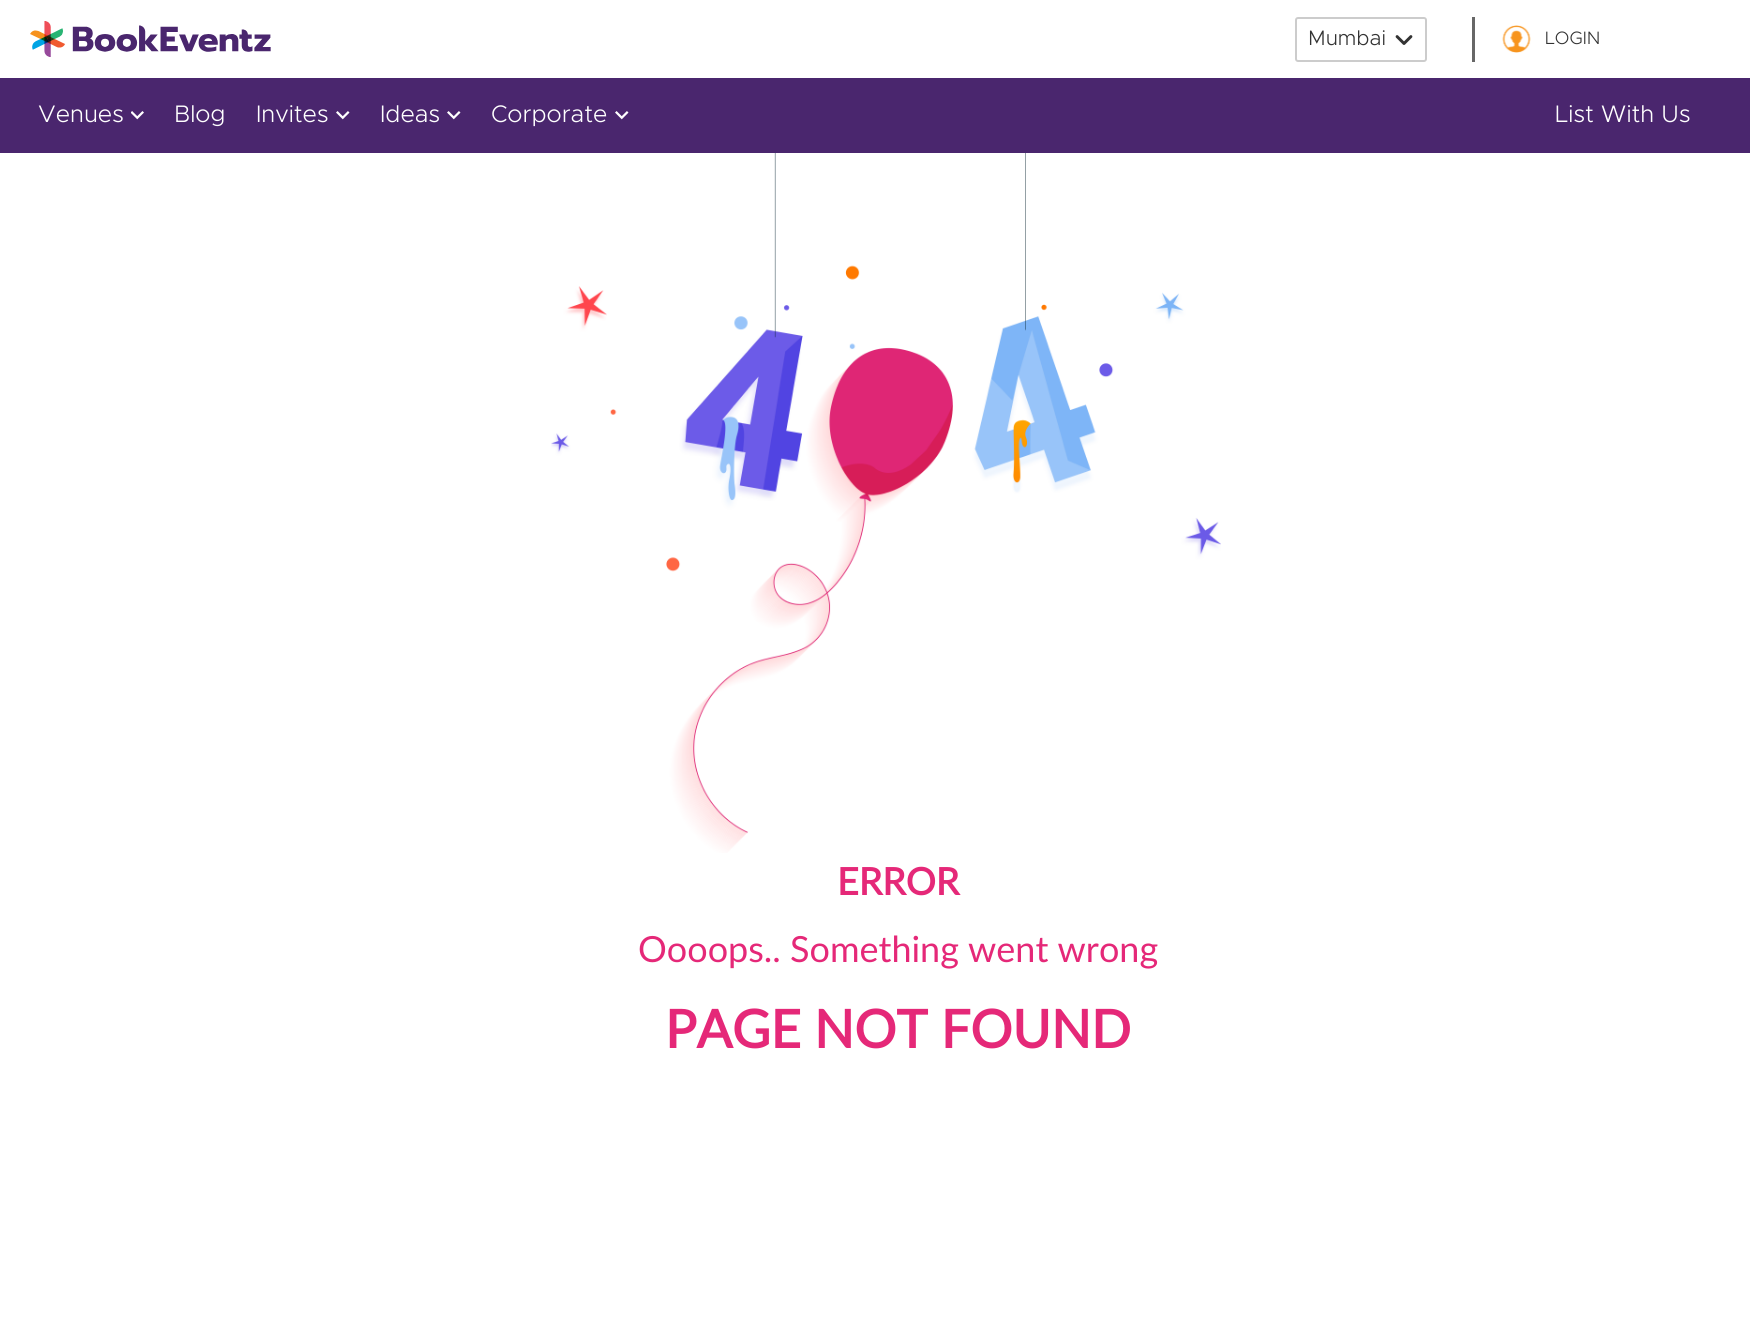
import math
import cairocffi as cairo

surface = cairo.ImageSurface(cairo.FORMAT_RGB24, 1750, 1330)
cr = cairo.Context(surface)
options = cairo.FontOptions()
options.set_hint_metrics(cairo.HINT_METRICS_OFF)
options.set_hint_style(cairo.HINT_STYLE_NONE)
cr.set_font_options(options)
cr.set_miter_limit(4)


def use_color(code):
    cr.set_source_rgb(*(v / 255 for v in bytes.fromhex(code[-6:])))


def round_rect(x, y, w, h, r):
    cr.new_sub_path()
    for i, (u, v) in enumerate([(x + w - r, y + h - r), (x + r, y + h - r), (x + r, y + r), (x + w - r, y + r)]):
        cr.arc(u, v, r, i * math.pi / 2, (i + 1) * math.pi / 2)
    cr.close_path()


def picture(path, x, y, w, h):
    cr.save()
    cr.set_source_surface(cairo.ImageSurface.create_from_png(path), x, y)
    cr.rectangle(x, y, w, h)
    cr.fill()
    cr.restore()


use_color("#ffffff")
cr.paint()
picture("img1.png", 30, 21, 241, 36)
round_rect(1296, 18, 130, 43, 2)
use_color("#cccccc")
cr.stroke()
cr.select_font_face("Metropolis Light")
cr.set_font_size(21)
use_color("#333333")
cr.move_to(1308, 45)
cr.show_text("Mumbai")
picture("img2.png", 1395, 35, 18, 10)
use_color("#676767")
cr.rectangle(1472, 17, 3, 45)
cr.fill()
picture("img3.png", 1502, 25, 29, 28)
cr.set_font_size(18)
use_color("#333333")
cr.move_to(1545, 44)
cr.show_text("LOGIN")
use_color("#4a266e")
cr.rectangle(0, 78, 1750, 75)
cr.fill()
cr.set_font_size(24)
use_color("#ffffff")
cr.move_to(38, 122)
cr.show_text("Venues")
picture("img4.png", 131, 111, 13, 9)
cr.move_to(174, 122)
cr.show_text("Blog")
cr.move_to(256, 122)
cr.show_text("Invites")
picture("img5.png", 336, 111, 14, 9)
cr.move_to(380, 122)
cr.show_text("Ideas")
picture("img5.png", 447, 111, 14, 9)
cr.move_to(491, 122)
cr.show_text("Corporate")
picture("img5.png", 615, 111, 14, 9)
cr.move_to(1555, 122)
cr.show_text("List With Us")
picture("img6.png", 551, 153, 670, 700)
cr.select_font_face("Lato", cairo.FONT_SLANT_NORMAL, cairo.FONT_WEIGHT_BOLD)
cr.set_font_size(37.5)
use_color("#e52878")
cr.move_to(837, 895)
cr.show_text("ERROR")
cr.select_font_face("Lato")
cr.set_font_size(36)
cr.move_to(638, 962)
cr.show_text("Oooops.. Something went wrong")
cr.select_font_face("Lato", cairo.FONT_SLANT_NORMAL, cairo.FONT_WEIGHT_BOLD)
cr.set_font_size(52.5)
cr.move_to(665, 1048)
cr.show_text("PAGE NOT FOUND")
surface.write_to_png("result.png")
